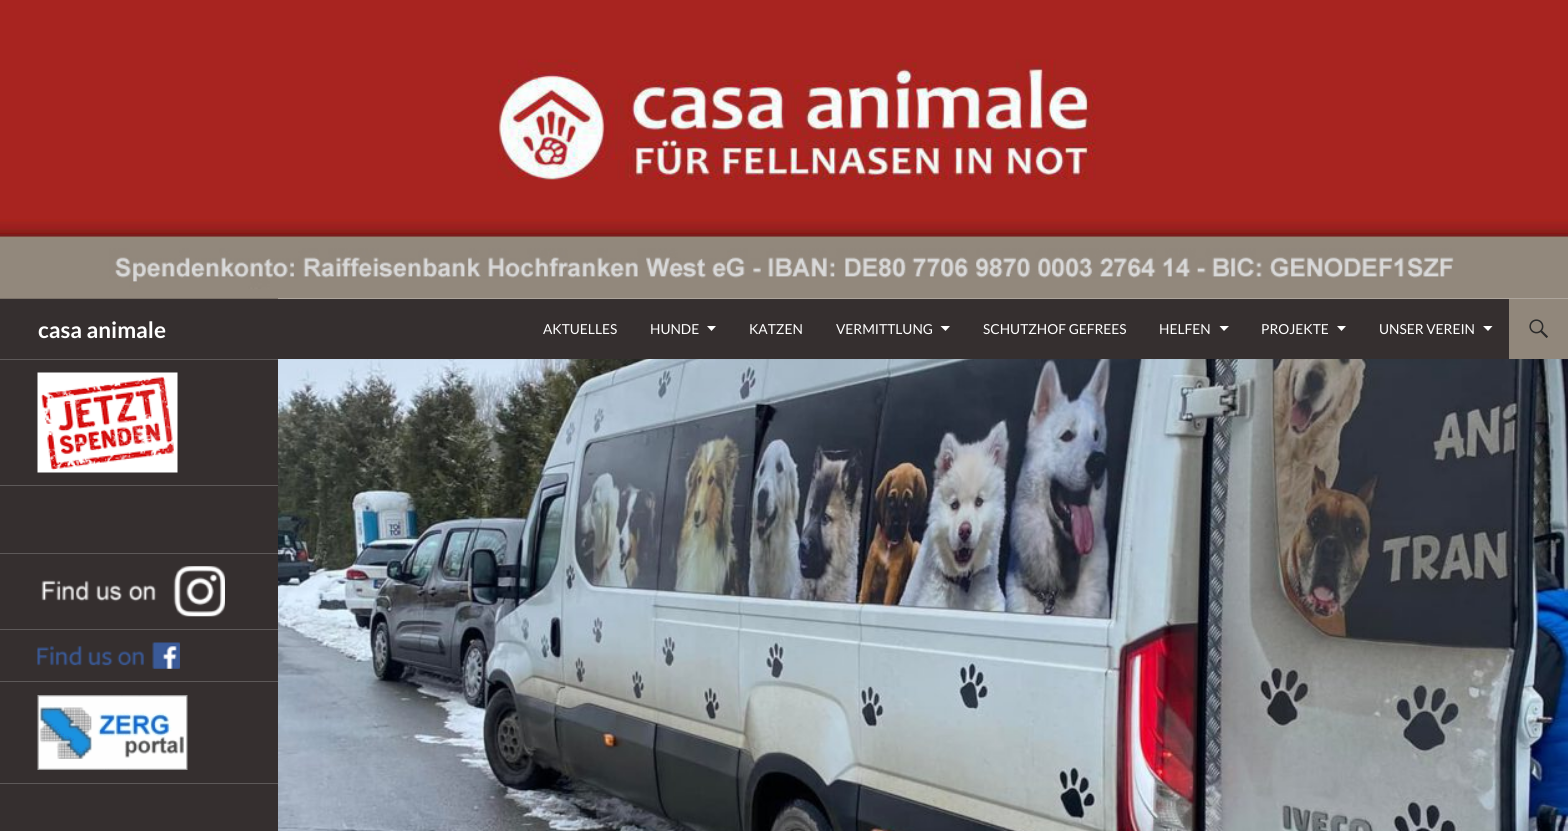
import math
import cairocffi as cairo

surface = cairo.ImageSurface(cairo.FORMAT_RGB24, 1568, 831)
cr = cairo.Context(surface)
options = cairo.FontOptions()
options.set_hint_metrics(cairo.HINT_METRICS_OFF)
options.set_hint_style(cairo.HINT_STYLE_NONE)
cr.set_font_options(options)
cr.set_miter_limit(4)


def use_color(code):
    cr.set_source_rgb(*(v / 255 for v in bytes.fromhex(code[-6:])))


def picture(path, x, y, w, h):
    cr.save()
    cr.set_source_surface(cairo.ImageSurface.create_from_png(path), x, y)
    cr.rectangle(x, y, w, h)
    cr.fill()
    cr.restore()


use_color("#ffffff")
cr.paint()
use_color("#352f2f")
cr.rectangle(0, 298, 278, 533)
cr.fill()
picture("img1.png", 0, 0, 1568, 299)
cr.rectangle(278, 299, 1231, 60)
cr.fill()
cr.select_font_face("Lato", cairo.FONT_SLANT_NORMAL, cairo.FONT_WEIGHT_BOLD)
cr.set_font_size(22.5)
use_color("#ffffff")
cr.move_to(38, 338)
cr.show_text("casa animale")
cr.select_font_face("Lato")
cr.set_font_size(13.75)
cr.move_to(543, 334)
cr.show_text("AKTUELLES")
cr.move_to(650, 334)
cr.show_text("HUNDE")
cr.new_path()
cr.move_to(707, 326)
cr.line_to(711.5, 331)
cr.line_to(716, 326)
cr.close_path()
cr.fill()
cr.move_to(749, 334)
cr.show_text("KATZEN")
cr.move_to(836, 334)
cr.show_text("VERMITTLUNG")
cr.new_path()
cr.move_to(940.5, 326)
cr.line_to(945.5, 331)
cr.line_to(950, 326)
cr.close_path()
cr.fill()
cr.move_to(983, 334)
cr.show_text("SCHUTZHOF GEFREES")
cr.move_to(1159, 334)
cr.show_text("HELFEN")
cr.new_path()
cr.move_to(1219.5, 326)
cr.line_to(1224, 331)
cr.line_to(1229, 326)
cr.close_path()
cr.fill()
cr.move_to(1261, 334)
cr.show_text("PROJEKTE")
cr.new_path()
cr.move_to(1337, 326)
cr.line_to(1341.5, 331)
cr.line_to(1346, 326)
cr.close_path()
cr.fill()
cr.move_to(1379, 334)
cr.show_text("UNSER VEREIN")
cr.new_path()
cr.move_to(1483, 326)
cr.line_to(1488, 331)
cr.line_to(1492.5, 326)
cr.close_path()
cr.fill()
use_color("#91877b")
cr.rectangle(1509, 299, 59, 60)
cr.fill()
picture("img2.png", 1529, 319, 19, 19)
use_color("#5d5959")
cr.rectangle(0, 783, 278, 1)
cr.fill()
cr.rectangle(0, 359, 278, 1)
cr.fill()
picture("img3.png", 37, 372, 141, 101)
cr.rectangle(0, 485, 278, 1)
cr.fill()
cr.rectangle(0, 553, 278, 1)
cr.fill()
picture("img4.png", 41, 566, 184, 51)
cr.rectangle(0, 629, 278, 1)
cr.fill()
picture("img5.png", 37, 642, 143, 27)
cr.rectangle(0, 681, 278, 1)
cr.fill()
picture("img6.png", 37, 695, 151, 75)
picture("img7.png", 278, 359, 1290, 472)
surface.write_to_png("result.png")
